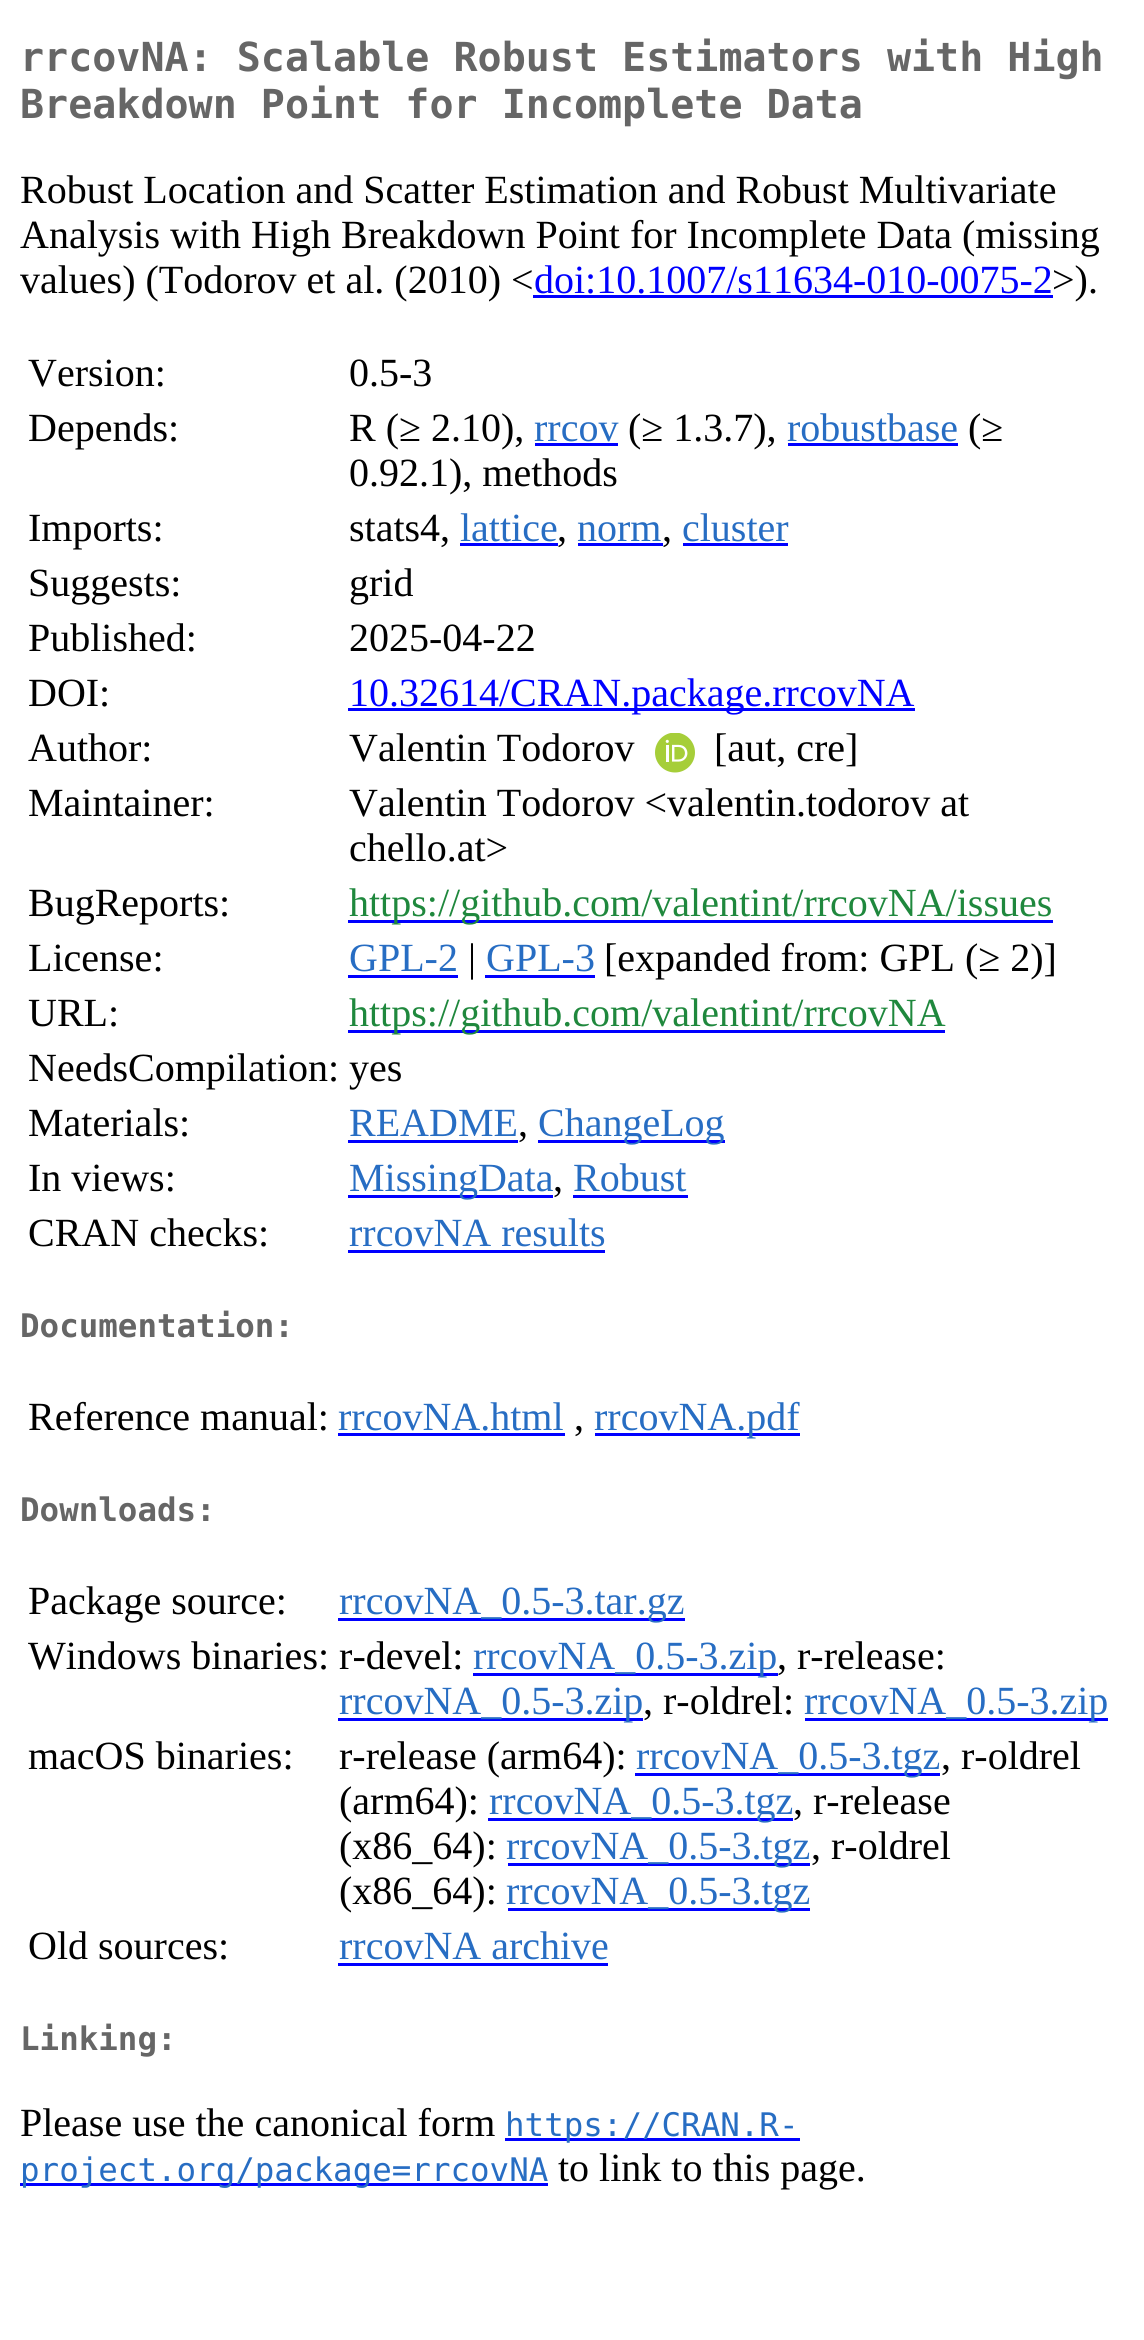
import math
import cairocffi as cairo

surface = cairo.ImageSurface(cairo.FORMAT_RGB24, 1144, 2340)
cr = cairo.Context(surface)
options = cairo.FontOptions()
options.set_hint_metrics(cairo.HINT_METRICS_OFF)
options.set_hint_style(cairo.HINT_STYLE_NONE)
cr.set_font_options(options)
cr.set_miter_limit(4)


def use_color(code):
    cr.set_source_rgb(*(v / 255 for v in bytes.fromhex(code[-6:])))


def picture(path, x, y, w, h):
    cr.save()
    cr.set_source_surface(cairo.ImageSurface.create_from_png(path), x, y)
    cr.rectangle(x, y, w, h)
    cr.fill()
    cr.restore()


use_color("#ffffff")
cr.paint()
cr.select_font_face("DejaVu Sans Mono", cairo.FONT_SLANT_NORMAL, cairo.FONT_WEIGHT_BOLD)
cr.set_font_size(40)
use_color("#666666")
cr.move_to(20, 71)
cr.show_text("rrcovNA: Scalable Robust Estimators with High")
cr.move_to(20, 118)
cr.show_text("Breakdown Point for Incomplete Data")
cr.select_font_face("Liberation Serif")
use_color("#000000")
cr.move_to(20, 203)
cr.show_text("Robust Location and Scatter Estimation and Robust Multivariate")
cr.move_to(20, 248)
cr.show_text("Analysis with High Breakdown Point for Incomplete Data (missing")
cr.move_to(20, 293)
cr.show_text("values) (Todorov et al. (2010) <")
use_color("#0000ff")
cr.move_to(534, 293)
cr.show_text("doi:10.1007/s11634-010-0075-2")
cr.rectangle(533, 295, 520, 3)
cr.fill()
use_color("#000000")
cr.move_to(1052, 293)
cr.show_text(">).")
cr.move_to(28, 386)
cr.show_text("Version:")
cr.move_to(349, 386)
cr.show_text("0.5-3")
cr.move_to(28, 441)
cr.show_text("Depends:")
cr.move_to(349, 441)
cr.show_text("R (≥ 2.10),")
use_color("#276dc3")
cr.move_to(534, 441)
cr.show_text("rrcov")
use_color("#0000ff")
cr.rectangle(535, 443, 83, 3)
cr.fill()
use_color("#000000")
cr.move_to(628, 441)
cr.show_text("(≥ 1.3.7),")
use_color("#276dc3")
cr.move_to(787, 441)
cr.show_text("robustbase")
use_color("#0000ff")
cr.rectangle(788, 443, 170, 3)
cr.fill()
use_color("#000000")
cr.move_to(968, 441)
cr.show_text("(≥")
cr.move_to(349, 486)
cr.show_text("0.92.1), methods")
cr.move_to(28, 541)
cr.show_text("Imports:")
cr.move_to(349, 541)
cr.show_text("stats4,")
use_color("#276dc3")
cr.move_to(460, 541)
cr.show_text("lattice")
use_color("#0000ff")
cr.rectangle(460, 543, 98, 3)
cr.fill()
use_color("#000000")
cr.move_to(557, 541)
cr.show_text(",")
use_color("#276dc3")
cr.move_to(577, 541)
cr.show_text("norm")
use_color("#0000ff")
cr.rectangle(578, 543, 85, 3)
cr.fill()
use_color("#000000")
cr.move_to(662, 541)
cr.show_text(",")
use_color("#276dc3")
cr.move_to(682, 541)
cr.show_text("cluster")
use_color("#0000ff")
cr.rectangle(683, 543, 105, 3)
cr.fill()
use_color("#000000")
cr.move_to(28, 596)
cr.show_text("Suggests:")
cr.move_to(349, 596)
cr.show_text("grid")
cr.move_to(28, 651)
cr.show_text("Published:")
cr.move_to(349, 651)
cr.show_text("2025-04-22")
cr.move_to(28, 706)
cr.show_text("DOI:")
use_color("#0000ff")
cr.rectangle(348, 708, 567, 3)
cr.fill()
cr.move_to(349, 706)
cr.show_text("10.32614/CRAN.package.rrcovNA")
use_color("#000000")
cr.move_to(28, 761)
cr.show_text("Author:")
cr.move_to(349, 761)
cr.show_text("Valentin Todorov")
picture("img1.png", 655, 733, 40, 40)
cr.move_to(714, 761)
cr.show_text("[aut, cre]")
cr.move_to(28, 816)
cr.show_text("Maintainer:")
cr.move_to(349, 816)
cr.show_text("Valentin Todorov <valentin.todorov at")
cr.move_to(349, 861)
cr.show_text("chello.at>")
cr.move_to(28, 916)
cr.show_text("BugReports:")
use_color("#0000ff")
cr.rectangle(348, 920, 705, 3)
cr.fill()
use_color("#1f883d")
cr.move_to(349, 916)
cr.show_text("https://github.com/valentint/rrcovNA/issues")
use_color("#000000")
cr.move_to(28, 971)
cr.show_text("License:")
use_color("#276dc3")
cr.move_to(349, 971)
cr.show_text("GPL-2")
use_color("#0000ff")
cr.rectangle(348, 975, 110, 3)
cr.fill()
use_color("#000000")
cr.move_to(468, 971)
cr.show_text("|")
use_color("#276dc3")
cr.move_to(486, 971)
cr.show_text("GPL-3")
use_color("#0000ff")
cr.rectangle(485, 975, 110, 3)
cr.fill()
use_color("#000000")
cr.move_to(604, 971)
cr.show_text("[expanded from: GPL (≥ 2)]")
cr.move_to(28, 1026)
cr.show_text("URL:")
use_color("#0000ff")
cr.rectangle(348, 1030, 597, 3)
cr.fill()
use_color("#1f883d")
cr.move_to(349, 1026)
cr.show_text("https://github.com/valentint/rrcovNA")
use_color("#000000")
cr.move_to(28, 1081)
cr.show_text("NeedsCompilation: yes")
cr.move_to(28, 1136)
cr.show_text("Materials:")
use_color("#276dc3")
cr.move_to(349, 1136)
cr.show_text("README")
use_color("#0000ff")
cr.rectangle(348, 1140, 170, 3)
cr.fill()
use_color("#000000")
cr.move_to(518, 1136)
cr.show_text(",")
use_color("#0000ff")
cr.rectangle(538, 1140, 187, 3)
cr.fill()
use_color("#276dc3")
cr.move_to(538, 1136)
cr.show_text("ChangeLog")
use_color("#000000")
cr.move_to(28, 1191)
cr.show_text("In views:")
use_color("#0000ff")
cr.rectangle(348, 1195, 205, 3)
cr.fill()
use_color("#276dc3")
cr.move_to(349, 1191)
cr.show_text("MissingData")
use_color("#000000")
cr.move_to(553, 1191)
cr.show_text(",")
use_color("#276dc3")
cr.move_to(573, 1191)
cr.show_text("Robust")
use_color("#0000ff")
cr.rectangle(573, 1195, 115, 3)
cr.fill()
use_color("#000000")
cr.move_to(28, 1246)
cr.show_text("CRAN checks:")
use_color("#276dc3")
cr.move_to(349, 1246)
cr.show_text("rrcovNA results")
use_color("#0000ff")
cr.rectangle(348, 1250, 257, 3)
cr.fill()
cr.select_font_face("DejaVu Sans Mono", cairo.FONT_SLANT_NORMAL, cairo.FONT_WEIGHT_BOLD)
cr.set_font_size(32.5)
use_color("#666666")
cr.move_to(20, 1337)
cr.show_text("Documentation:")
cr.select_font_face("Liberation Serif")
cr.set_font_size(40)
use_color("#000000")
cr.move_to(28, 1430)
cr.show_text("Reference manual:")
use_color("#276dc3")
cr.move_to(338, 1430)
cr.show_text("rrcovNA.html")
use_color("#0000ff")
cr.rectangle(338, 1433, 227, 3)
cr.fill()
use_color("#000000")
cr.move_to(574, 1430)
cr.show_text(",")
use_color("#0000ff")
cr.rectangle(595, 1433, 205, 3)
cr.fill()
use_color("#276dc3")
cr.move_to(594, 1430)
cr.show_text("rrcovNA.pdf")
cr.select_font_face("DejaVu Sans Mono", cairo.FONT_SLANT_NORMAL, cairo.FONT_WEIGHT_BOLD)
cr.set_font_size(32.5)
use_color("#666666")
cr.move_to(20, 1521)
cr.show_text("Downloads:")
cr.select_font_face("Liberation Serif")
cr.set_font_size(40)
use_color("#000000")
cr.move_to(28, 1614)
cr.show_text("Package source:")
use_color("#0000ff")
cr.rectangle(338, 1618, 347, 3)
cr.fill()
use_color("#276dc3")
cr.move_to(339, 1614)
cr.show_text("rrcovNA_0.5-3.tar.gz")
use_color("#000000")
cr.move_to(28, 1669)
cr.show_text("Windows binaries: r-devel:")
use_color("#0000ff")
cr.rectangle(473, 1673, 305, 3)
cr.fill()
use_color("#276dc3")
cr.move_to(473, 1669)
cr.show_text("rrcovNA_0.5-3.zip")
use_color("#000000")
cr.move_to(777, 1669)
cr.show_text(", r-release:")
use_color("#0000ff")
cr.rectangle(338, 1718, 305, 3)
cr.fill()
use_color("#276dc3")
cr.move_to(339, 1714)
cr.show_text("rrcovNA_0.5-3.zip")
use_color("#000000")
cr.move_to(643, 1714)
cr.show_text(", r-oldrel:")
use_color("#0000ff")
cr.rectangle(805, 1718, 303, 3)
cr.fill()
use_color("#276dc3")
cr.move_to(804, 1714)
cr.show_text("rrcovNA_0.5-3.zip")
use_color("#000000")
cr.move_to(28, 1769)
cr.show_text("macOS binaries:")
cr.move_to(339, 1769)
cr.show_text("r-release (arm64):")
use_color("#0000ff")
cr.rectangle(635, 1773, 305, 3)
cr.fill()
use_color("#276dc3")
cr.move_to(636, 1769)
cr.show_text("rrcovNA_0.5-3.tgz")
use_color("#000000")
cr.move_to(941, 1769)
cr.show_text(", r-oldrel")
cr.move_to(339, 1814)
cr.show_text("(arm64):")
use_color("#0000ff")
cr.rectangle(488, 1818, 305, 3)
cr.fill()
use_color("#276dc3")
cr.move_to(489, 1814)
cr.show_text("rrcovNA_0.5-3.tgz")
use_color("#000000")
cr.move_to(793, 1814)
cr.show_text(", r-release")
cr.move_to(339, 1859)
cr.show_text("(x86_64):")
use_color("#0000ff")
cr.rectangle(508, 1863, 302, 3)
cr.fill()
use_color("#276dc3")
cr.move_to(506, 1859)
cr.show_text("rrcovNA_0.5-3.tgz")
use_color("#000000")
cr.move_to(811, 1859)
cr.show_text(", r-oldrel")
cr.move_to(339, 1904)
cr.show_text("(x86_64):")
use_color("#0000ff")
cr.rectangle(508, 1908, 302, 3)
cr.fill()
use_color("#276dc3")
cr.move_to(506, 1904)
cr.show_text("rrcovNA_0.5-3.tgz")
use_color("#000000")
cr.move_to(28, 1959)
cr.show_text("Old sources:")
use_color("#276dc3")
cr.move_to(339, 1959)
cr.show_text("rrcovNA archive")
use_color("#0000ff")
cr.rectangle(338, 1963, 270, 3)
cr.fill()
cr.select_font_face("DejaVu Sans Mono", cairo.FONT_SLANT_NORMAL, cairo.FONT_WEIGHT_BOLD)
cr.set_font_size(32.5)
use_color("#666666")
cr.move_to(20, 2050)
cr.show_text("Linking:")
cr.select_font_face("Liberation Serif")
cr.set_font_size(40)
use_color("#000000")
cr.move_to(20, 2136)
cr.show_text("Please use the canonical form")
use_color("#0000ff")
cr.rectangle(505, 2138, 295, 3)
cr.fill()
cr.select_font_face("DejaVu Sans Mono")
cr.set_font_size(32.5)
use_color("#276dc3")
cr.move_to(505, 2136)
cr.show_text("https://CRAN.R-")
use_color("#0000ff")
cr.rectangle(20, 2183, 528, 3)
cr.fill()
use_color("#276dc3")
cr.move_to(20, 2181)
cr.show_text("project.org/package=rrcovNA")
cr.select_font_face("Liberation Serif")
cr.set_font_size(40)
use_color("#000000")
cr.move_to(558, 2181)
cr.show_text("to link to this page.")
surface.write_to_png("result.png")
